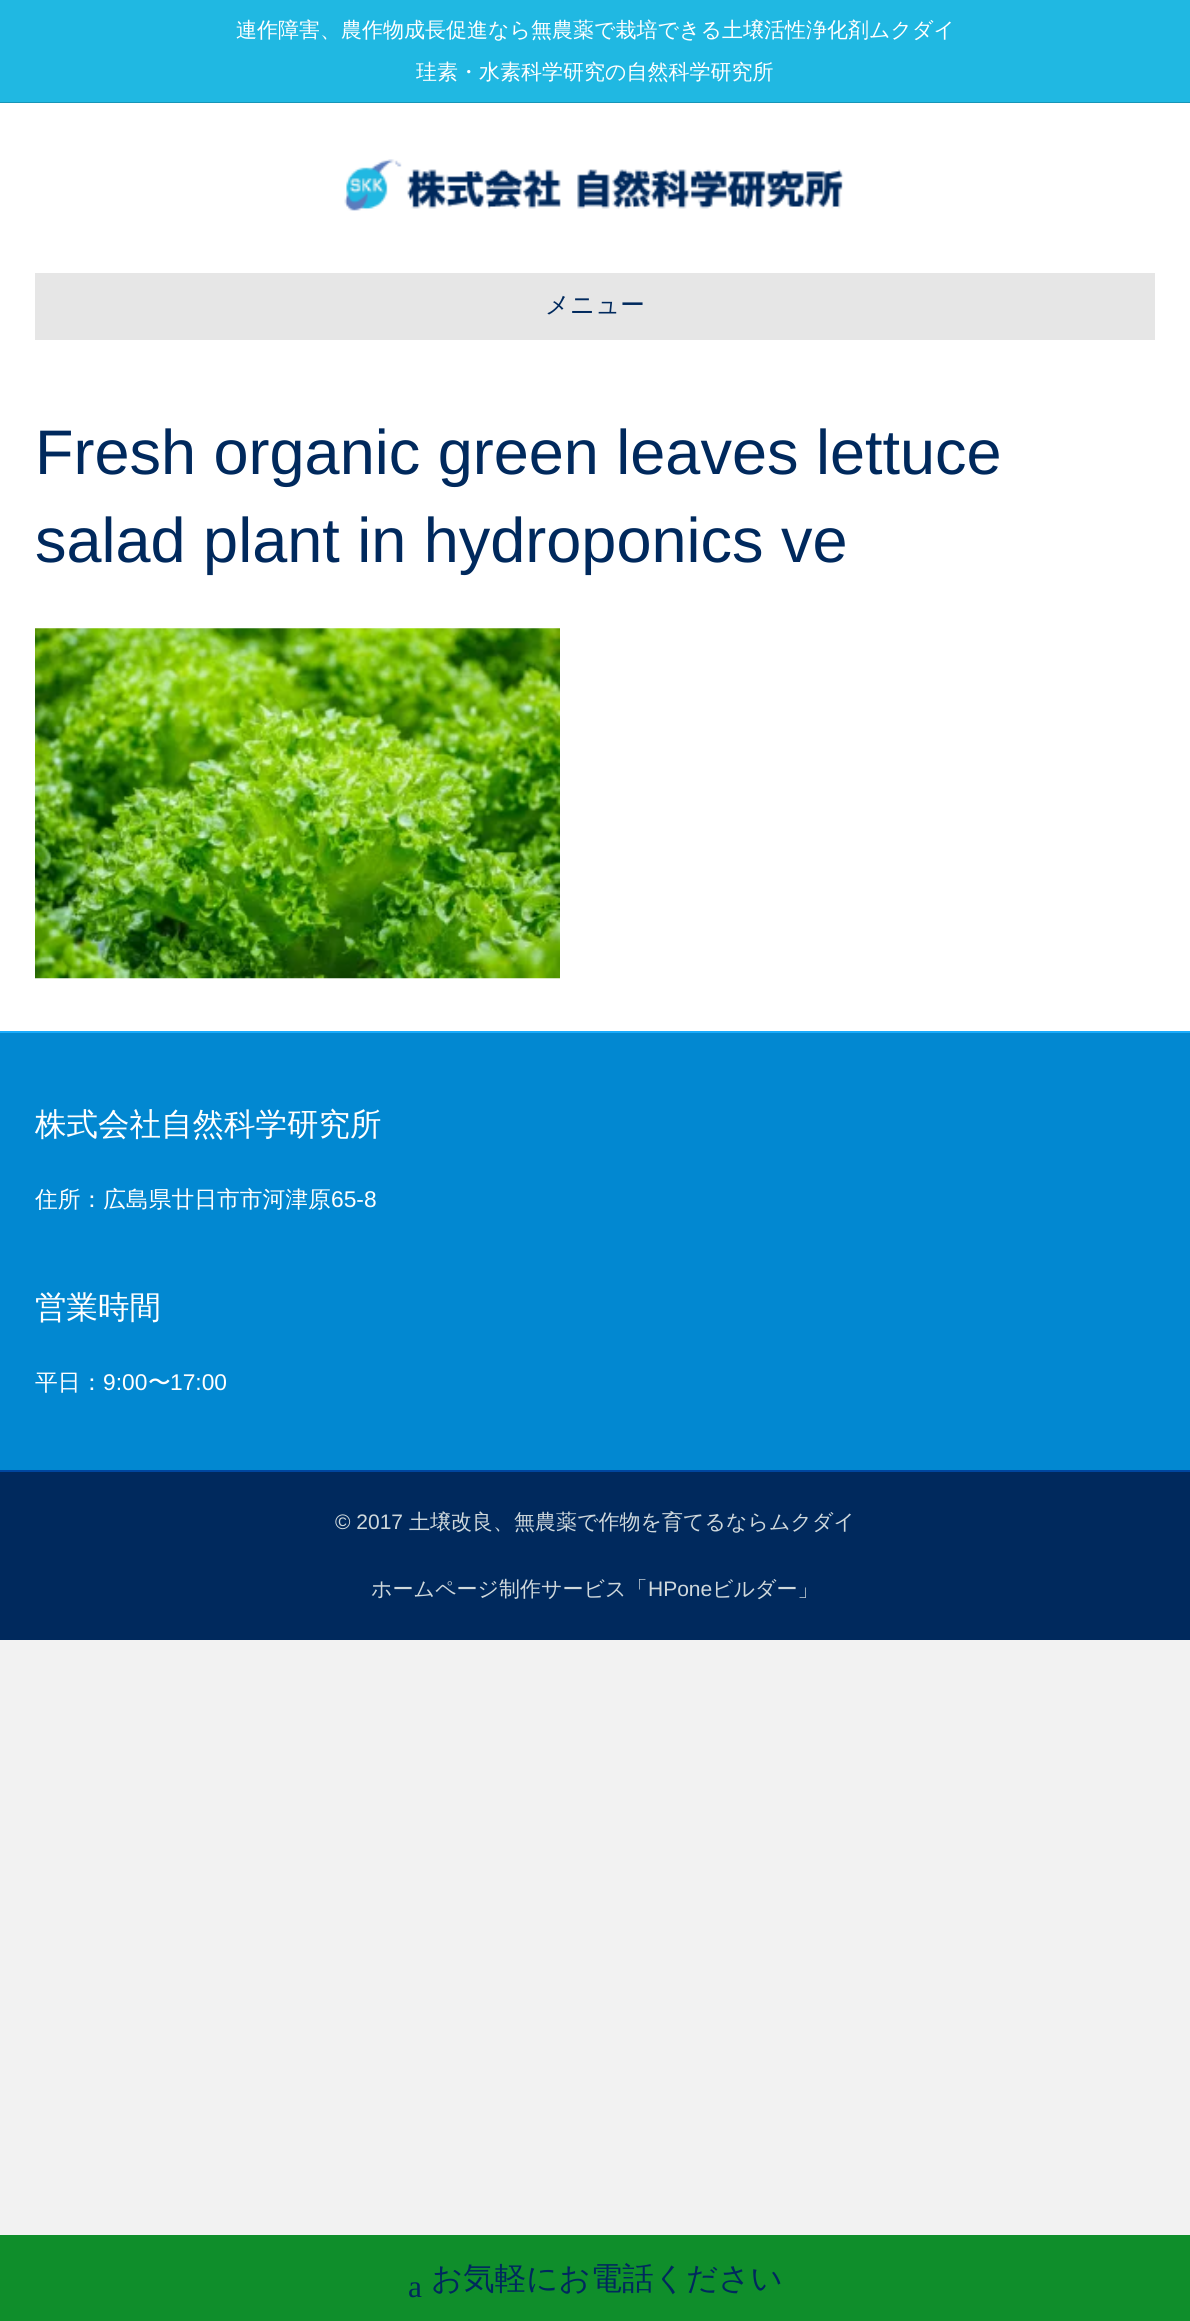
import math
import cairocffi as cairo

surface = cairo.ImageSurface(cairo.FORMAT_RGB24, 1190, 2321)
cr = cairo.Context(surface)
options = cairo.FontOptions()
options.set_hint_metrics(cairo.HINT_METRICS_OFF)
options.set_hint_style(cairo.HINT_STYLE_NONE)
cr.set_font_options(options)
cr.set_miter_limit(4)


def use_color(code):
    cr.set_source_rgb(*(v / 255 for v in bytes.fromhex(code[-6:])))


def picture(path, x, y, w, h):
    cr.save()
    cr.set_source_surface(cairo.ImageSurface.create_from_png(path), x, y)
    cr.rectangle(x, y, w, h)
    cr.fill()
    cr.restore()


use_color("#f2f2f2")
cr.paint()
use_color("#20b8e2")
cr.rectangle(0, 0, 1190, 102)
cr.fill()
use_color("#1895b7")
cr.rectangle(0, 102, 1190, 1)
cr.fill()
cr.select_font_face("WenQuanYi Zen Hei Medium")
cr.set_font_size(21)
use_color("#ffffff")
cr.move_to(236, 37)
cr.show_text("連作障害、農作物成長促進なら無農薬で栽培できる土壌活性浄化剤ムクダイ")
cr.move_to(416, 79)
cr.show_text("珪素・水素科学研究の自然科学研究所")
cr.rectangle(0, 103, 1190, 928)
cr.fill()
picture("img1.png", 344, 159, 500, 52)
use_color("#e6e6e6")
cr.rectangle(35, 273, 1120, 67)
cr.fill()
cr.set_font_size(24.5)
use_color("#00295d")
cr.move_to(545, 313)
cr.show_text("メニュー")
cr.select_font_face("Liberation Sans")
cr.set_font_size(63)
cr.move_to(35, 474)
cr.show_text("Fresh organic green leaves lettuce")
cr.move_to(35, 562)
cr.show_text("salad plant in hydroponics ve")
picture("img2.png", 35, 628, 525, 351)
use_color("#0288d1")
cr.rectangle(0, 1033, 1190, 437)
cr.fill()
use_color("#19acfd")
cr.rectangle(0, 1031, 1190, 2)
cr.fill()
cr.select_font_face("WenQuanYi Zen Hei Medium")
cr.set_font_size(31.5)
use_color("#ffffff")
cr.move_to(35, 1135)
cr.show_text("株式会社自然科学研究所")
cr.set_font_size(22.75)
cr.move_to(35, 1207)
cr.show_text("住所：広島県廿日市市河津原")
cr.select_font_face("Liberation Sans")
cr.move_to(331, 1207)
cr.show_text("65-8")
cr.select_font_face("WenQuanYi Zen Hei Medium")
cr.set_font_size(31.5)
cr.move_to(35, 1318)
cr.show_text("営業時間")
cr.set_font_size(22.75)
cr.move_to(35, 1390)
cr.show_text("平日：")
cr.select_font_face("Liberation Sans")
cr.move_to(103, 1390)
cr.show_text("9:00")
cr.select_font_face("WenQuanYi Zen Hei Medium")
cr.move_to(148, 1390)
cr.show_text("〜")
cr.select_font_face("Liberation Sans")
cr.move_to(170, 1390)
cr.show_text("17:00")
use_color("#00295d")
cr.rectangle(0, 1472, 1190, 168)
cr.fill()
use_color("#00469f")
cr.rectangle(0, 1470, 1190, 2)
cr.fill()
cr.set_font_size(21)
use_color("#cfd8dc")
cr.move_to(335, 1529)
cr.show_text("© 2017")
cr.select_font_face("WenQuanYi Zen Hei Medium")
cr.move_to(409, 1529)
cr.show_text("土壌改良、無農薬で作物を育てるならムクダイ")
cr.move_to(371, 1596)
cr.show_text("ホームページ制作サービス「")
cr.select_font_face("Liberation Sans")
cr.move_to(648, 1596)
cr.show_text("HPone")
cr.select_font_face("WenQuanYi Zen Hei Medium")
cr.move_to(712, 1596)
cr.show_text("ビルダー」")
use_color("#0f8e2b")
cr.rectangle(0, 2235, 1190, 86)
cr.fill()
cr.select_font_face("Liberation Serif")
cr.set_font_size(31.5)
use_color("#00295d")
cr.move_to(408, 2297)
cr.show_text("a")
cr.select_font_face("WenQuanYi Zen Hei Medium")
cr.move_to(431, 2289)
cr.show_text("お気軽にお電話ください")
surface.write_to_png("result.png")
